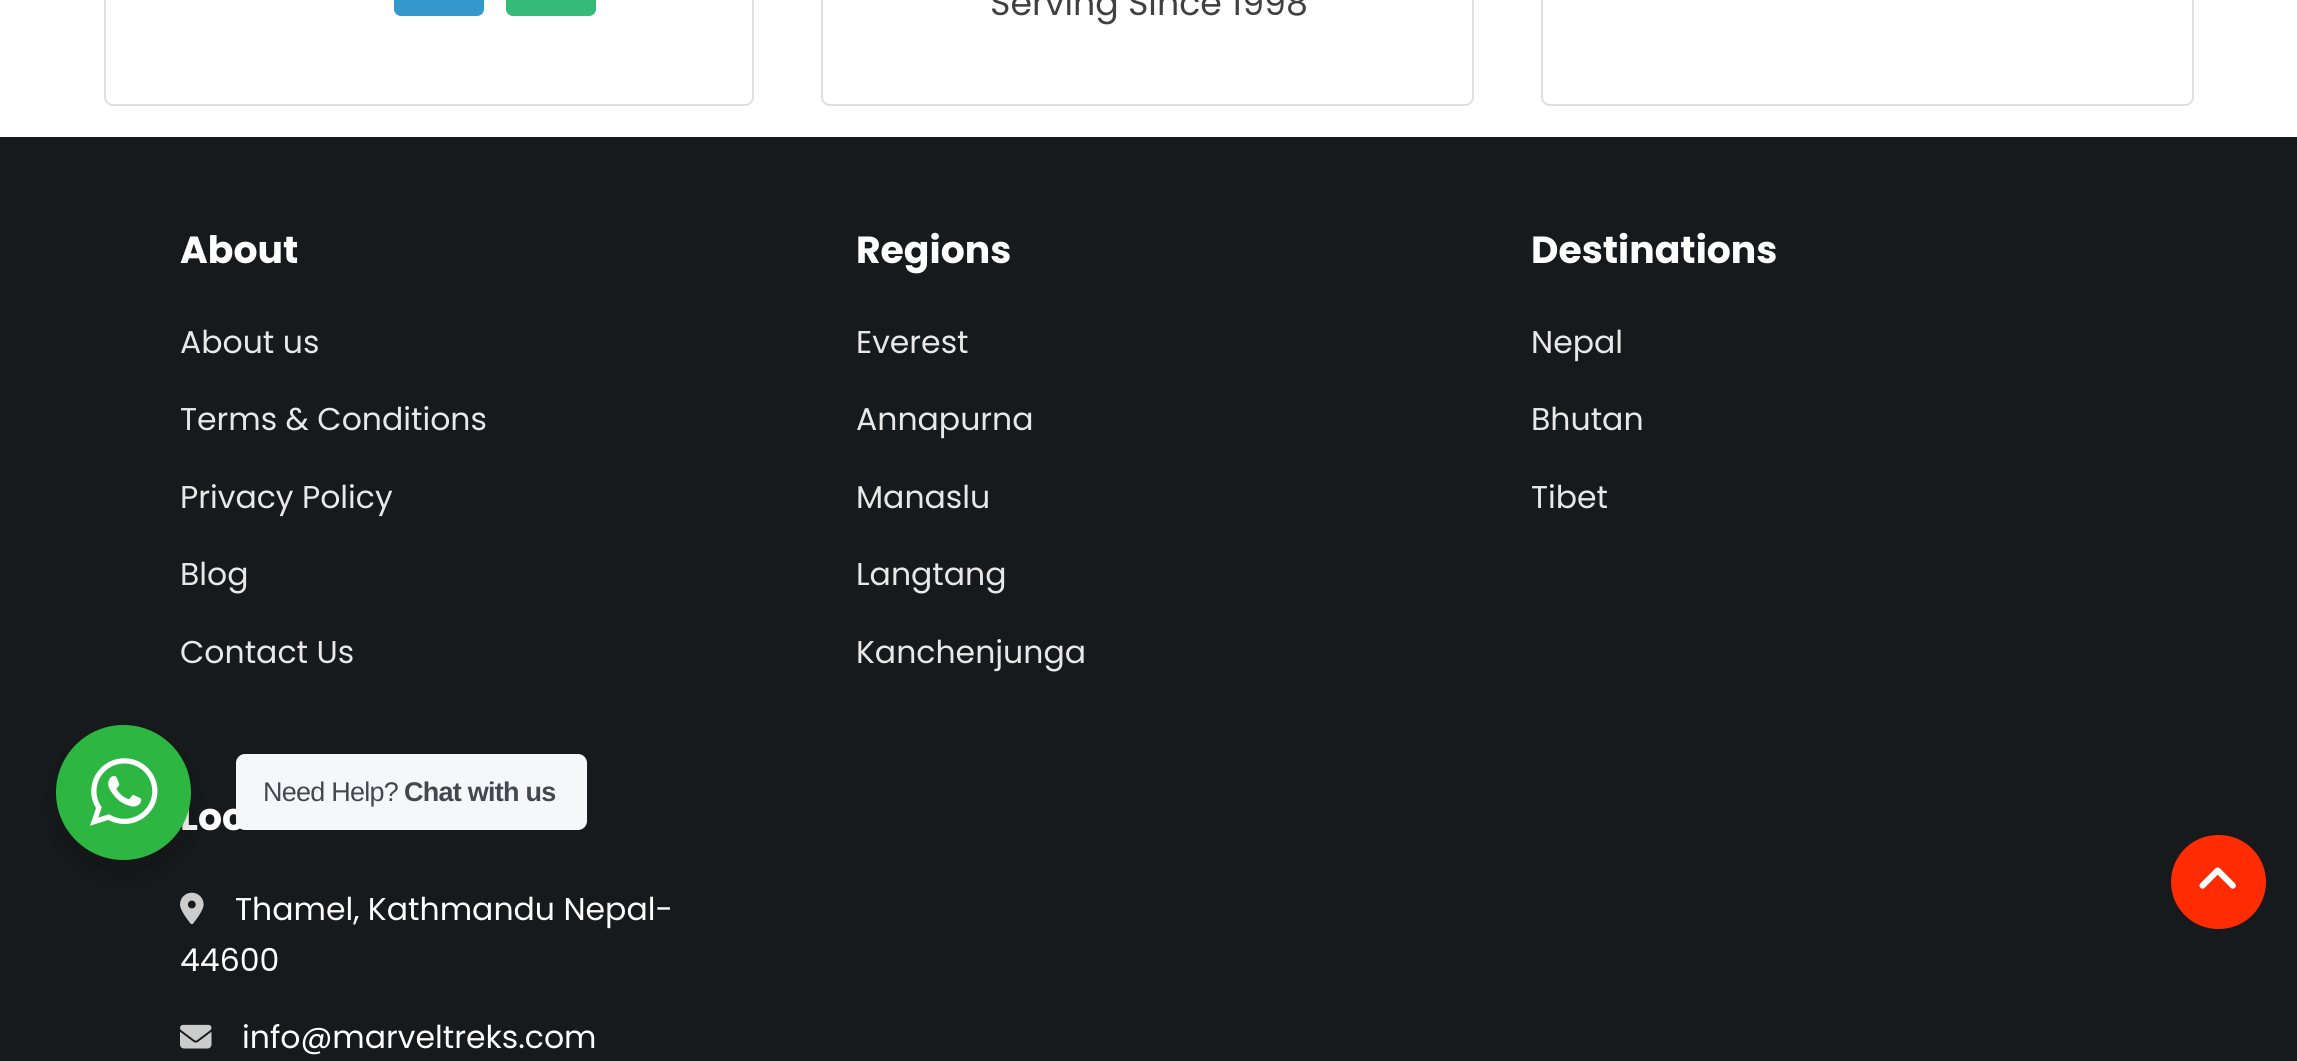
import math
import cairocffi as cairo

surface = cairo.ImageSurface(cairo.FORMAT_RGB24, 2297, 1061)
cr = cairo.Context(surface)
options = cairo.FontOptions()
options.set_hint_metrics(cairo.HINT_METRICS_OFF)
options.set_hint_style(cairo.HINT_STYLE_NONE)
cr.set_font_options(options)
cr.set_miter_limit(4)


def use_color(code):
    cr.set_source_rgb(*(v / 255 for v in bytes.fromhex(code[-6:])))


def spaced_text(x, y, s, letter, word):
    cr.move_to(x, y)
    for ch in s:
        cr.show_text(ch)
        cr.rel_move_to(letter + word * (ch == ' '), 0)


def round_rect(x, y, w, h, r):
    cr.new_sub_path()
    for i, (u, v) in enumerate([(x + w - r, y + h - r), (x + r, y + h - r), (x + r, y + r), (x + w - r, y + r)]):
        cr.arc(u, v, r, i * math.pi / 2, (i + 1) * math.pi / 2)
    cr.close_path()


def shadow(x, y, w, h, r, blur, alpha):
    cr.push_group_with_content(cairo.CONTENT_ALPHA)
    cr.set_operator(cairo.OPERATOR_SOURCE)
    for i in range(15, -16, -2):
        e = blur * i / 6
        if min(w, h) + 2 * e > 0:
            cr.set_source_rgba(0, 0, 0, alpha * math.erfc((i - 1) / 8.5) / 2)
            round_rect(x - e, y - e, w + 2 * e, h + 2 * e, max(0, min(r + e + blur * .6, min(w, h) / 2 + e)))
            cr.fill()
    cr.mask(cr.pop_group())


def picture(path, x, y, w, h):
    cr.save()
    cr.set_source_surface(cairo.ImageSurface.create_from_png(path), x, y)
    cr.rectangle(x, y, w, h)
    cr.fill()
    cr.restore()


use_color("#ffffff")
cr.paint()
round_rect(105, -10, 648, 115, 8)
use_color("#dfdfdf")
cr.stroke()
use_color("#3399cc")
round_rect(394, -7, 90, 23, 7)
cr.fill()
use_color("#33bb77")
round_rect(506, -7, 90, 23, 7)
cr.fill()
round_rect(822, -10, 651, 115, 8)
use_color("#dfdfdf")
cr.stroke()
cr.select_font_face("Poppins")
cr.set_font_size(34.75)
use_color("#404040")
cr.move_to(990, 15)
cr.show_text("Serving Since 1998")
round_rect(1542, -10, 651, 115, 8)
use_color("#dfdfdf")
cr.stroke()
use_color("#171a1c")
cr.rectangle(0, 137, 2297, 924)
cr.fill()
cr.select_font_face("Poppins", cairo.FONT_SLANT_NORMAL, cairo.FONT_WEIGHT_BOLD)
cr.set_font_size(37.75)
use_color("#ffffff")
cr.move_to(180, 263)
cr.show_text("About")
cr.select_font_face("Poppins")
cr.set_font_size(31.5)
use_color("#e8e8e8")
cr.move_to(180, 353)
cr.show_text("About us")
cr.move_to(180, 430)
cr.show_text("Terms & Conditions")
cr.move_to(180, 508)
cr.show_text("Privacy Policy")
cr.move_to(180, 585)
cr.show_text("Blog")
cr.move_to(180, 663)
cr.show_text("Contact Us")
cr.select_font_face("Poppins", cairo.FONT_SLANT_NORMAL, cairo.FONT_WEIGHT_BOLD)
cr.set_font_size(37.75)
use_color("#ffffff")
cr.move_to(856, 263)
cr.show_text("Regions")
cr.select_font_face("Poppins")
cr.set_font_size(31.5)
use_color("#e8e8e8")
cr.move_to(856, 353)
cr.show_text("Everest")
cr.move_to(856, 430)
cr.show_text("Annapurna")
cr.move_to(856, 508)
cr.show_text("Manaslu")
cr.move_to(856, 585)
cr.show_text("Langtang")
cr.move_to(856, 663)
cr.show_text("Kanchenjunga")
cr.select_font_face("Poppins", cairo.FONT_SLANT_NORMAL, cairo.FONT_WEIGHT_BOLD)
cr.set_font_size(37.75)
use_color("#ffffff")
cr.move_to(1531, 263)
cr.show_text("Destinations")
cr.select_font_face("Poppins")
cr.set_font_size(31.5)
use_color("#e8e8e8")
cr.move_to(1531, 353)
cr.show_text("Nepal")
cr.move_to(1531, 430)
cr.show_text("Bhutan")
cr.move_to(1531, 508)
cr.show_text("Tibet")
cr.select_font_face("Poppins", cairo.FONT_SLANT_NORMAL, cairo.FONT_WEIGHT_BOLD)
cr.set_font_size(37.75)
use_color("#ffffff")
cr.move_to(180, 830)
cr.show_text("Loc")
picture("img1.png", 180, 892, 24, 33)
cr.select_font_face("Poppins")
cr.set_font_size(31.5)
cr.move_to(235, 920)
cr.show_text("Thamel, Kathmandu Nepal-")
cr.move_to(180, 971)
cr.show_text("44600")
picture("img2.png", 180, 1024, 32, 25)
cr.move_to(242, 1048)
cr.show_text("info@marveltreks.com")
use_color("#ff2b03")
round_rect(2171, 835, 95, 94, 47)
cr.fill()
picture("img3.png", 2199, 867, 37, 22)
use_color("#000000")
shadow(52, 734, 144, 144, 72, 9, 0.14)
use_color("#2db742")
cr.arc(123.5, 792.5, 67.5, 0, 2 * math.pi)
cr.fill()
picture("img4.png", 90, 758, 68, 68)
use_color("#f5f7f9")
round_rect(236, 754, 351, 76, 9)
cr.fill()
cr.select_font_face("Liberation Sans")
cr.set_font_size(27)
use_color("#43474e")
spaced_text(263, 801, "Need Help?", -0.75, 0)
cr.select_font_face("Liberation Sans", cairo.FONT_SLANT_NORMAL, cairo.FONT_WEIGHT_BOLD)
spaced_text(404, 801, "Chat with us", -0.75, 0)
surface.write_to_png("result.png")
